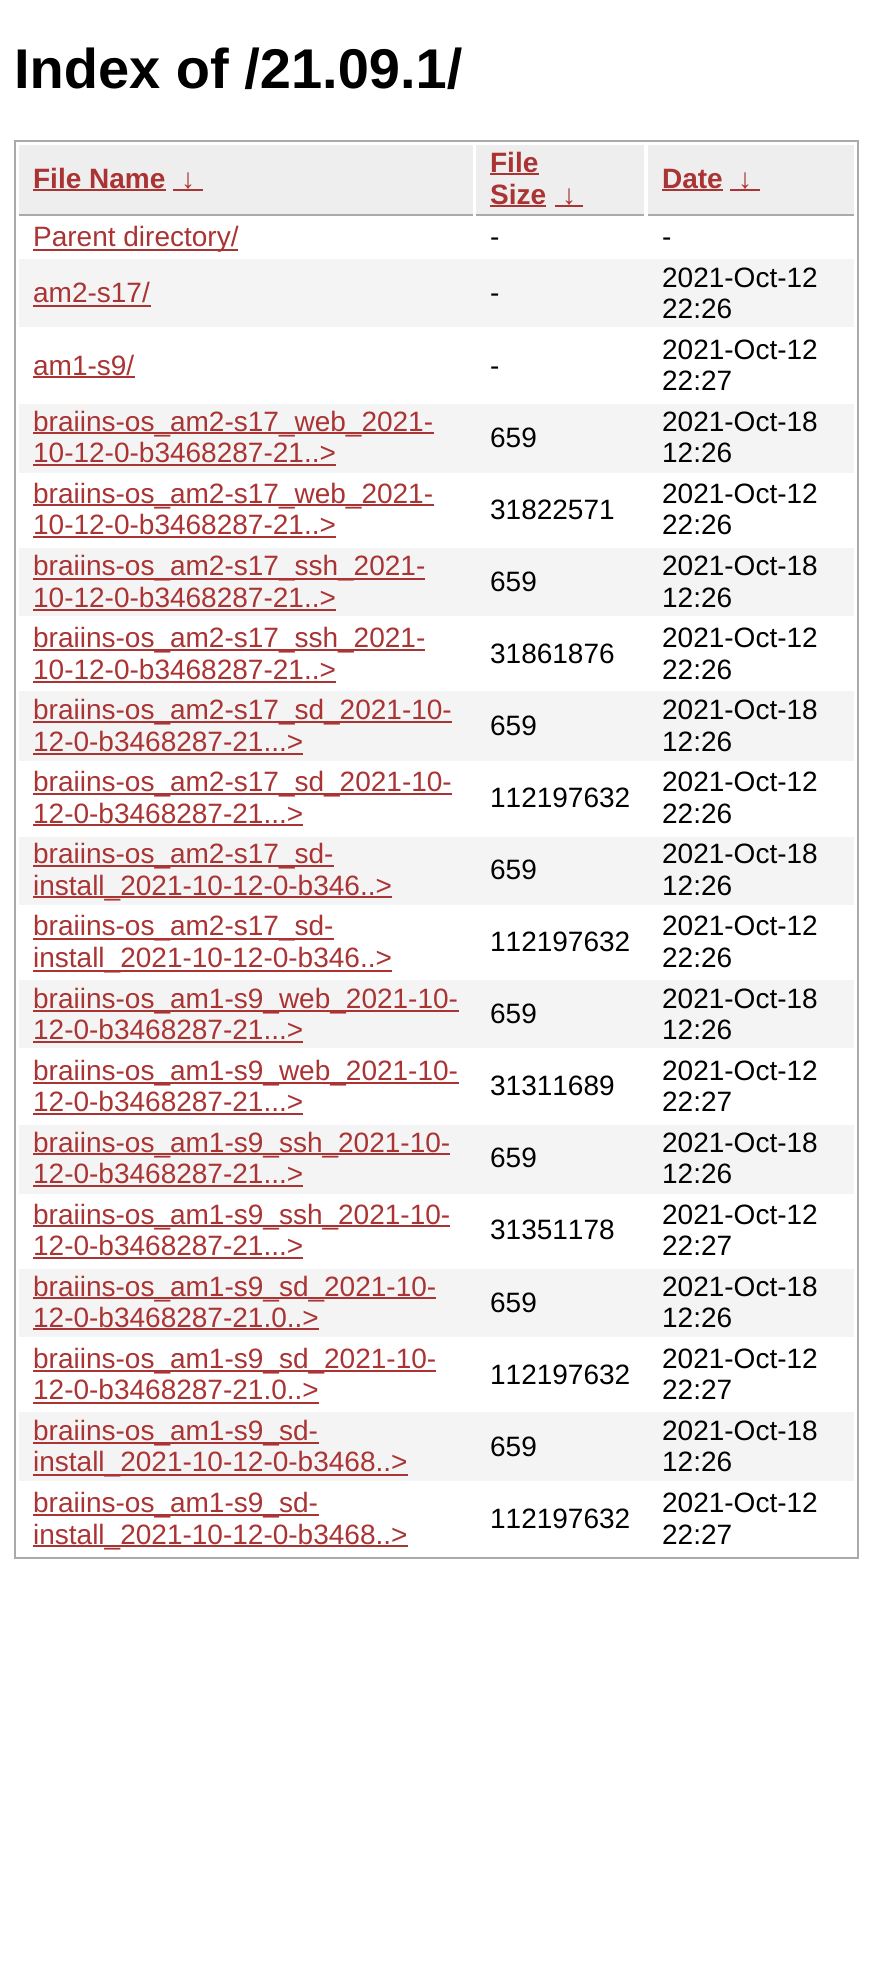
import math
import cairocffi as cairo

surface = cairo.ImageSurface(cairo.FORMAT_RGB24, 872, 1979)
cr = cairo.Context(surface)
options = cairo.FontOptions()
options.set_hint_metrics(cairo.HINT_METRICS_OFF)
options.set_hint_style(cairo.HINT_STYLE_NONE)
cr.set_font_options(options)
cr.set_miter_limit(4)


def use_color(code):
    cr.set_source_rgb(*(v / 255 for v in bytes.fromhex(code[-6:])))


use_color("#ffffff")
cr.paint()
cr.select_font_face("Liberation Sans", cairo.FONT_SLANT_NORMAL, cairo.FONT_WEIGHT_BOLD)
cr.set_font_size(56)
use_color("#000000")
cr.move_to(14, 88)
cr.show_text("Index of /21.09.1/")
cr.rectangle(15, 141, 843, 1417)
use_color("#aaaaaa")
cr.stroke()
use_color("#eeeeee")
cr.rectangle(19, 145, 454, 69)
cr.fill()
use_color("#aaaaaa")
cr.rectangle(19, 214, 454, 2)
cr.fill()
cr.set_font_size(28)
use_color("#aa3333")
cr.move_to(33, 188)
cr.show_text("File Name")
cr.rectangle(33, 189, 133, 2)
cr.fill()
cr.move_to(181, 188)
cr.show_text("↓")
cr.rectangle(173, 189, 30, 2)
cr.fill()
use_color("#eeeeee")
cr.rectangle(476, 145, 168, 69)
cr.fill()
use_color("#aaaaaa")
cr.rectangle(476, 214, 168, 2)
cr.fill()
use_color("#aa3333")
cr.move_to(490, 172)
cr.show_text("File")
cr.rectangle(490, 173, 49, 2)
cr.fill()
cr.move_to(490, 204)
cr.show_text("Size")
cr.rectangle(490, 205, 56, 2)
cr.fill()
cr.move_to(562, 204)
cr.show_text("↓")
cr.rectangle(555, 205, 28, 2)
cr.fill()
use_color("#eeeeee")
cr.rectangle(648, 145, 206, 69)
cr.fill()
use_color("#aaaaaa")
cr.rectangle(648, 214, 206, 2)
cr.fill()
use_color("#aa3333")
cr.move_to(662, 188)
cr.show_text("Date")
cr.rectangle(662, 189, 61, 2)
cr.fill()
cr.move_to(738, 188)
cr.show_text("↓")
cr.rectangle(730, 189, 30, 2)
cr.fill()
cr.rectangle(33, 249, 205, 2)
cr.fill()
cr.select_font_face("Liberation Sans")
cr.move_to(33, 246)
cr.show_text("Parent directory/")
use_color("#000000")
cr.move_to(490, 246)
cr.show_text("-")
cr.move_to(662, 246)
cr.show_text("-")
use_color("#f4f4f4")
cr.rectangle(19, 259, 835, 68)
cr.fill()
use_color("#aa3333")
cr.move_to(33, 302)
cr.show_text("am2-s17/")
cr.rectangle(33, 305, 118, 2)
cr.fill()
use_color("#000000")
cr.move_to(490, 302)
cr.show_text("-")
cr.move_to(662, 287)
cr.show_text("2021-Oct-12")
cr.move_to(662, 318)
cr.show_text("22:26")
use_color("#aa3333")
cr.move_to(33, 375)
cr.show_text("am1-s9/")
cr.rectangle(33, 376, 102, 2)
cr.fill()
use_color("#000000")
cr.move_to(490, 375)
cr.show_text("-")
cr.move_to(662, 359)
cr.show_text("2021-Oct-12")
cr.move_to(662, 390)
cr.show_text("22:27")
use_color("#f4f4f4")
cr.rectangle(19, 404, 835, 69)
cr.fill()
use_color("#aa3333")
cr.rectangle(33, 432, 401, 2)
cr.fill()
cr.move_to(33, 431)
cr.show_text("braiins-os_am2-s17_web_2021-")
cr.move_to(33, 462)
cr.show_text("10-12-0-b3468287-21..>")
cr.rectangle(33, 464, 303, 2)
cr.fill()
use_color("#000000")
cr.move_to(490, 447)
cr.show_text("659")
cr.move_to(662, 431)
cr.show_text("2021-Oct-18")
cr.move_to(662, 462)
cr.show_text("12:26")
use_color("#aa3333")
cr.rectangle(33, 504, 401, 2)
cr.fill()
cr.move_to(33, 503)
cr.show_text("braiins-os_am2-s17_web_2021-")
cr.move_to(33, 534)
cr.show_text("10-12-0-b3468287-21..>")
cr.rectangle(33, 536, 303, 2)
cr.fill()
use_color("#000000")
cr.move_to(490, 519)
cr.show_text("31822571")
cr.move_to(662, 503)
cr.show_text("2021-Oct-12")
cr.move_to(662, 534)
cr.show_text("22:26")
use_color("#f4f4f4")
cr.rectangle(19, 548, 835, 68)
cr.fill()
use_color("#aa3333")
cr.rectangle(33, 578, 392, 2)
cr.fill()
cr.move_to(33, 575)
cr.show_text("braiins-os_am2-s17_ssh_2021-")
cr.move_to(33, 607)
cr.show_text("10-12-0-b3468287-21..>")
cr.rectangle(33, 609, 303, 2)
cr.fill()
use_color("#000000")
cr.move_to(490, 591)
cr.show_text("659")
cr.move_to(662, 575)
cr.show_text("2021-Oct-18")
cr.move_to(662, 607)
cr.show_text("12:26")
use_color("#aa3333")
cr.rectangle(33, 649, 392, 2)
cr.fill()
cr.move_to(33, 647)
cr.show_text("braiins-os_am2-s17_ssh_2021-")
cr.move_to(33, 679)
cr.show_text("10-12-0-b3468287-21..>")
cr.rectangle(33, 681, 303, 2)
cr.fill()
use_color("#000000")
cr.move_to(490, 663)
cr.show_text("31861876")
cr.move_to(662, 647)
cr.show_text("2021-Oct-12")
cr.move_to(662, 679)
cr.show_text("22:26")
use_color("#f4f4f4")
cr.rectangle(19, 691, 835, 70)
cr.fill()
use_color("#aa3333")
cr.rectangle(33, 721, 419, 2)
cr.fill()
cr.move_to(33, 719)
cr.show_text("braiins-os_am2-s17_sd_2021-10-")
cr.move_to(33, 751)
cr.show_text("12-0-b3468287-21...>")
cr.rectangle(33, 753, 270, 2)
cr.fill()
use_color("#000000")
cr.move_to(490, 735)
cr.show_text("659")
cr.move_to(662, 719)
cr.show_text("2021-Oct-18")
cr.move_to(662, 751)
cr.show_text("12:26")
use_color("#aa3333")
cr.rectangle(33, 793, 419, 2)
cr.fill()
cr.move_to(33, 791)
cr.show_text("braiins-os_am2-s17_sd_2021-10-")
cr.move_to(33, 823)
cr.show_text("12-0-b3468287-21...>")
cr.rectangle(33, 824, 270, 2)
cr.fill()
use_color("#000000")
cr.move_to(490, 807)
cr.show_text("112197632")
cr.move_to(662, 791)
cr.show_text("2021-Oct-12")
cr.move_to(662, 823)
cr.show_text("22:26")
use_color("#f4f4f4")
cr.rectangle(19, 837, 835, 68)
cr.fill()
use_color("#aa3333")
cr.rectangle(33, 865, 301, 2)
cr.fill()
cr.move_to(33, 863)
cr.show_text("braiins-os_am2-s17_sd-")
cr.rectangle(33, 896, 359, 2)
cr.fill()
cr.move_to(33, 895)
cr.show_text("install_2021-10-12-0-b346..>")
use_color("#000000")
cr.move_to(490, 879)
cr.show_text("659")
cr.move_to(662, 863)
cr.show_text("2021-Oct-18")
cr.move_to(662, 895)
cr.show_text("12:26")
use_color("#aa3333")
cr.rectangle(33, 938, 301, 2)
cr.fill()
cr.move_to(33, 935)
cr.show_text("braiins-os_am2-s17_sd-")
cr.rectangle(33, 970, 359, 2)
cr.fill()
cr.move_to(33, 967)
cr.show_text("install_2021-10-12-0-b346..>")
use_color("#000000")
cr.move_to(490, 951)
cr.show_text("112197632")
cr.move_to(662, 935)
cr.show_text("2021-Oct-12")
cr.move_to(662, 967)
cr.show_text("22:26")
use_color("#f4f4f4")
cr.rectangle(19, 980, 835, 68)
cr.fill()
use_color("#aa3333")
cr.rectangle(33, 1010, 426, 2)
cr.fill()
cr.move_to(33, 1008)
cr.show_text("braiins-os_am1-s9_web_2021-10-")
cr.move_to(33, 1039)
cr.show_text("12-0-b3468287-21...>")
cr.rectangle(33, 1041, 270, 2)
cr.fill()
use_color("#000000")
cr.move_to(490, 1023)
cr.show_text("659")
cr.move_to(662, 1008)
cr.show_text("2021-Oct-18")
cr.move_to(662, 1039)
cr.show_text("12:26")
use_color("#aa3333")
cr.rectangle(33, 1082, 426, 2)
cr.fill()
cr.move_to(33, 1080)
cr.show_text("braiins-os_am1-s9_web_2021-10-")
cr.move_to(33, 1111)
cr.show_text("12-0-b3468287-21...>")
cr.rectangle(33, 1113, 270, 2)
cr.fill()
use_color("#000000")
cr.move_to(490, 1095)
cr.show_text("31311689")
cr.move_to(662, 1080)
cr.show_text("2021-Oct-12")
cr.move_to(662, 1111)
cr.show_text("22:27")
use_color("#f4f4f4")
cr.rectangle(19, 1125, 835, 69)
cr.fill()
use_color("#aa3333")
cr.rectangle(33, 1153, 417, 2)
cr.fill()
cr.move_to(33, 1152)
cr.show_text("braiins-os_am1-s9_ssh_2021-10-")
cr.move_to(33, 1183)
cr.show_text("12-0-b3468287-21...>")
cr.rectangle(33, 1185, 270, 2)
cr.fill()
use_color("#000000")
cr.move_to(490, 1167)
cr.show_text("659")
cr.move_to(662, 1152)
cr.show_text("2021-Oct-18")
cr.move_to(662, 1183)
cr.show_text("12:26")
use_color("#aa3333")
cr.rectangle(33, 1225, 417, 2)
cr.fill()
cr.move_to(33, 1224)
cr.show_text("braiins-os_am1-s9_ssh_2021-10-")
cr.move_to(33, 1255)
cr.show_text("12-0-b3468287-21...>")
cr.rectangle(33, 1257, 270, 2)
cr.fill()
use_color("#000000")
cr.move_to(490, 1239)
cr.show_text("31351178")
cr.move_to(662, 1224)
cr.show_text("2021-Oct-12")
cr.move_to(662, 1255)
cr.show_text("22:27")
use_color("#f4f4f4")
cr.rectangle(19, 1269, 835, 68)
cr.fill()
use_color("#aa3333")
cr.rectangle(33, 1297, 403, 2)
cr.fill()
cr.move_to(33, 1296)
cr.show_text("braiins-os_am1-s9_sd_2021-10-")
cr.move_to(33, 1327)
cr.show_text("12-0-b3468287-21.0..>")
cr.rectangle(33, 1328, 286, 2)
cr.fill()
use_color("#000000")
cr.move_to(490, 1312)
cr.show_text("659")
cr.move_to(662, 1296)
cr.show_text("2021-Oct-18")
cr.move_to(662, 1327)
cr.show_text("12:26")
use_color("#aa3333")
cr.rectangle(33, 1370, 403, 2)
cr.fill()
cr.move_to(33, 1368)
cr.show_text("braiins-os_am1-s9_sd_2021-10-")
cr.move_to(33, 1399)
cr.show_text("12-0-b3468287-21.0..>")
cr.rectangle(33, 1402, 286, 2)
cr.fill()
use_color("#000000")
cr.move_to(490, 1384)
cr.show_text("112197632")
cr.move_to(662, 1368)
cr.show_text("2021-Oct-12")
cr.move_to(662, 1399)
cr.show_text("22:27")
use_color("#f4f4f4")
cr.rectangle(19, 1412, 835, 69)
cr.fill()
use_color("#aa3333")
cr.rectangle(33, 1442, 286, 2)
cr.fill()
cr.move_to(33, 1440)
cr.show_text("braiins-os_am1-s9_sd-")
cr.rectangle(33, 1474, 375, 2)
cr.fill()
cr.move_to(33, 1471)
cr.show_text("install_2021-10-12-0-b3468..>")
use_color("#000000")
cr.move_to(490, 1456)
cr.show_text("659")
cr.move_to(662, 1440)
cr.show_text("2021-Oct-18")
cr.move_to(662, 1471)
cr.show_text("12:26")
use_color("#aa3333")
cr.rectangle(33, 1514, 286, 2)
cr.fill()
cr.move_to(33, 1512)
cr.show_text("braiins-os_am1-s9_sd-")
cr.rectangle(33, 1545, 375, 2)
cr.fill()
cr.move_to(33, 1544)
cr.show_text("install_2021-10-12-0-b3468..>")
use_color("#000000")
cr.move_to(490, 1528)
cr.show_text("112197632")
cr.move_to(662, 1512)
cr.show_text("2021-Oct-12")
cr.move_to(662, 1544)
cr.show_text("22:27")
surface.write_to_png("result.png")
